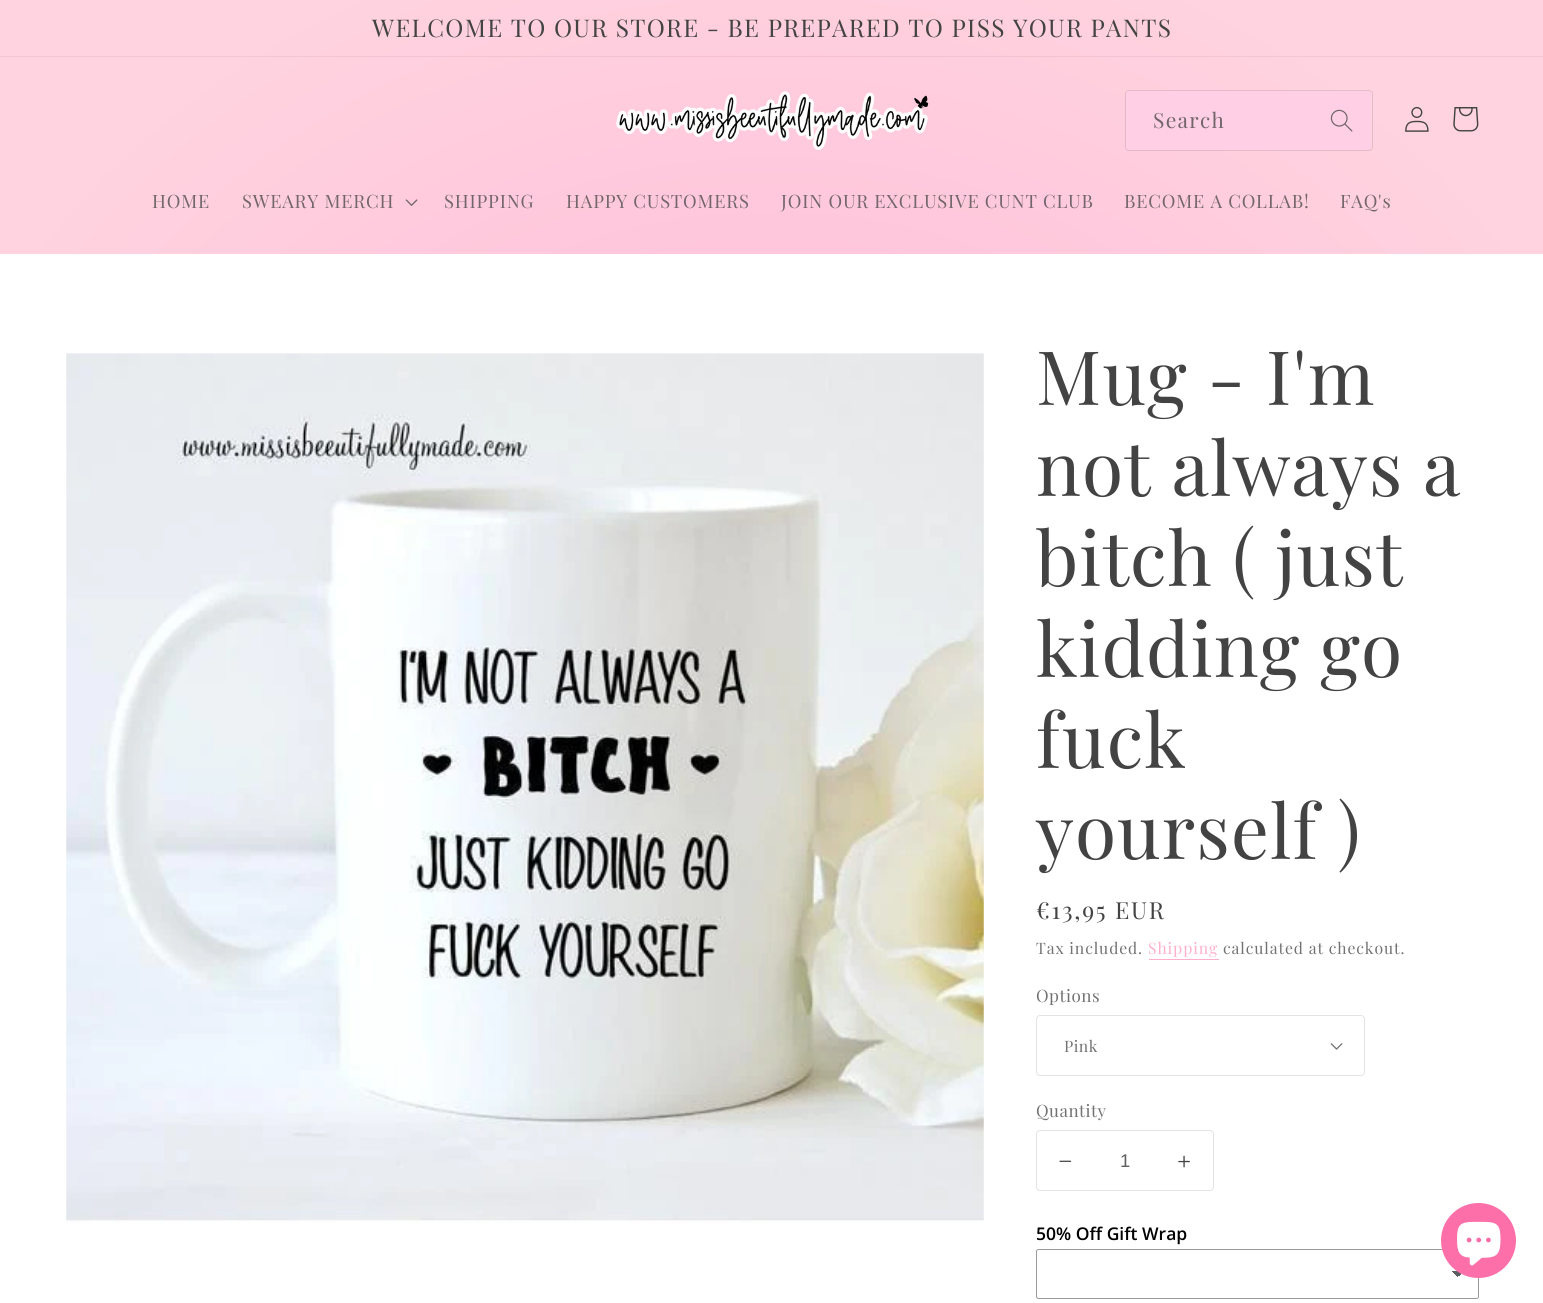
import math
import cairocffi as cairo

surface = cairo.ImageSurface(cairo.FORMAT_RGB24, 1543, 1303)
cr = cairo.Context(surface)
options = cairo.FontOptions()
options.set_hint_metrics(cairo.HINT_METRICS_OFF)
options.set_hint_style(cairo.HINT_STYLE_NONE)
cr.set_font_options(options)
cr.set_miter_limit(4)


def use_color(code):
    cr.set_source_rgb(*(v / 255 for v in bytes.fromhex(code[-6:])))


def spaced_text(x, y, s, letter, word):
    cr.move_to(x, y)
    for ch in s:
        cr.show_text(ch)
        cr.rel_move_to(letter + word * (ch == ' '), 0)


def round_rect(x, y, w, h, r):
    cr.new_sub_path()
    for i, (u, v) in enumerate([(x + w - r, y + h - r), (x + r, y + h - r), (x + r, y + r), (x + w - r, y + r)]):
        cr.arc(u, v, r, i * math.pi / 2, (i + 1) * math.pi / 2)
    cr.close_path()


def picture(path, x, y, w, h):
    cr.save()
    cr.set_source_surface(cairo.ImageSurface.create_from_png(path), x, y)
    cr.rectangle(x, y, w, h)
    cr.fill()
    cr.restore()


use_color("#ffffff")
cr.paint()
gradient = cairo.RadialGradient(0, 0, 0, 0, 0, 1)
gradient.set_matrix(cairo.Matrix(1 / 1092, 0, 0, 1 / 922, -1 * 772 / 1092, -1 * 652 / 922))
gradient.add_color_stop_rgba(0, 1, 0.718, 0.843, 1)
gradient.add_color_stop_rgba(0.84, 1, 0.831, 0.878, 1)
cr.set_source(gradient)
cr.rectangle(0, 0, 1543, 58)
cr.fill()
gradient = cairo.RadialGradient(0, 0, 0, 0, 0, 1)
gradient.set_matrix(cairo.Matrix(1 / 1092, 0, 0, 1 / 922, -1 * 772 / 1092, -1 * 652 / 922))
gradient.add_color_stop_rgba(0, 0.941, 0.682, 0.796, 1)
gradient.add_color_stop_rgba(0.84, 0.941, 0.784, 0.827, 1)
cr.set_source(gradient)
cr.rectangle(0, 56, 1543, 1)
cr.fill()
cr.select_font_face("Playfair Display")
cr.set_font_size(24.4)
use_color("#434343")
spaced_text(372, 37, "WELCOME TO OUR STORE - BE PREPARED TO PISS YOUR PANTS", 1.3, 0)
gradient = cairo.RadialGradient(0, 0, 0, 0, 0, 1)
gradient.set_matrix(cairo.Matrix(1 / 1092, 0, 0, 1 / 922, -1 * 772 / 1092, -1 * 652 / 922))
gradient.add_color_stop_rgba(0, 1, 0.718, 0.843, 1)
gradient.add_color_stop_rgba(0.84, 1, 0.831, 0.878, 1)
cr.set_source(gradient)
cr.rectangle(0, 58, 1543, 196)
cr.fill()
picture("img1.png", 616, 91, 313, 59)
use_color("#ffcfe5")
round_rect(1126, 91, 245, 59, 2.5)
cr.fill()
picture("img2.png", 1330, 109, 23, 23)
round_rect(1125.5, 90.5, 247, 60, 3.5)
cr.set_source_rgba(0.263, 0.263, 0.263, 0.15)
cr.set_line_width(1)
cr.stroke()
cr.set_font_size(21)
use_color("#72666a")
spaced_text(1153, 128, "Search", 1.3, 0)
picture("img3.png", 1405, 106, 24, 26)
picture("img4.png", 1453, 107, 26, 25)
cr.set_font_size(18.4)
spaced_text(152, 208, "HOME", 0.8, 0)
spaced_text(242, 208, "SWEARY MERCH", 0.8, 0)
picture("img5.png", 405, 199, 13, 7)
spaced_text(444, 208, "SHIPPING", 0.8, 0)
spaced_text(566, 208, "HAPPY CUSTOMERS", 0.8, 0)
spaced_text(781, 208, "JOIN OUR EXCLUSIVE CUNT CLUB", 0.8, 0)
spaced_text(1124, 208, "BECOME A COLLAB!", 0.8, 0)
spaced_text(1340, 208, "FAQ's", 0.8, 0)
picture("img6.png", 66, 353, 918, 870)
cr.set_font_size(75)
use_color("#434343")
spaced_text(1036, 405, "Mug - I'm", 1.1, 0)
spaced_text(1036, 496, "not always a", 1.1, 0)
spaced_text(1036, 586, "bitch ( just", 1.1, 0)
spaced_text(1036, 677, "kidding go", 1.1, 0)
spaced_text(1036, 768, "fuck", 1.1, 0)
spaced_text(1036, 859, "yourself )", 1.1, 0)
cr.set_font_size(23.5)
spaced_text(1036, 919, "€13,95 EUR", 1.75, 0)
cr.set_font_size(15.75)
use_color("#727272")
spaced_text(1036, 954, "Tax included.", 0.9, 0)
use_color("#ffafcc")
spaced_text(1148, 954, "Shipping", 0.9, 0)
cr.rectangle(1149, 959, 70, 1)
cr.fill()
use_color("#727272")
spaced_text(1223, 954, "calculated at checkout.", 0.9, 0)
cr.set_font_size(17)
spaced_text(1036, 1002, "Options", 0.5, 0)
picture("img7.png", 1330, 1043, 13, 7)
round_rect(1036.5, 1015.5, 328, 60, 3.5)
use_color("#e3e3e3")
cr.stroke()
cr.set_font_size(15.75)
use_color("#727272")
spaced_text(1064, 1052, "Pink", 0.5, 0)
cr.set_font_size(17)
spaced_text(1036, 1117, "Quantity", 0.5, 0)
picture("img8.png", 1059, 1160, 13, 2)
picture("img9.png", 1178, 1155, 12, 13)
round_rect(1036.5, 1130.5, 177, 60, 3.5)
use_color("#e3e3e3")
cr.stroke()
cr.select_font_face("Liberation Sans")
cr.set_font_size(18.4)
use_color("#5f5f5f")
cr.move_to(1120, 1167)
cr.show_text("1")
cr.select_font_face("Open Sans SemiBold")
cr.set_font_size(17.5)
use_color("#000000")
cr.move_to(1036, 1240)
cr.show_text("50% Off Gift Wrap")
round_rect(1036.5, 1249.5, 442, 49, 2)
use_color("#9a9a9a")
cr.stroke()
use_color("#ffffff")
round_rect(1038, 1250, 440, 48, 2.5)
cr.fill()
gradient = cairo.LinearGradient(1458, 1271, 1464, 1277)
gradient.add_color_stop_rgba(0.5, 0.361, 0.373, 0.384, 1)
gradient.add_color_stop_rgba(0.5, 1, 1, 1, 1)
cr.set_source(gradient)
cr.rectangle(1458, 1271, 6, 7)
cr.fill()
gradient = cairo.LinearGradient(1451, 1277, 1458, 1271)
gradient.add_color_stop_rgba(0.5, 1, 1, 1, 1)
gradient.add_color_stop_rgba(0.5, 0.361, 0.373, 0.384, 1)
cr.set_source(gradient)
cr.rectangle(1451, 1271, 7, 6)
cr.fill()
use_color("#fd6fa8")
cr.arc(1478.5, 1240.5, 37.5, 0, 2 * math.pi)
cr.fill()
picture("img10.png", 1457, 1221, 44, 45)
surface.write_to_png("result.png")
